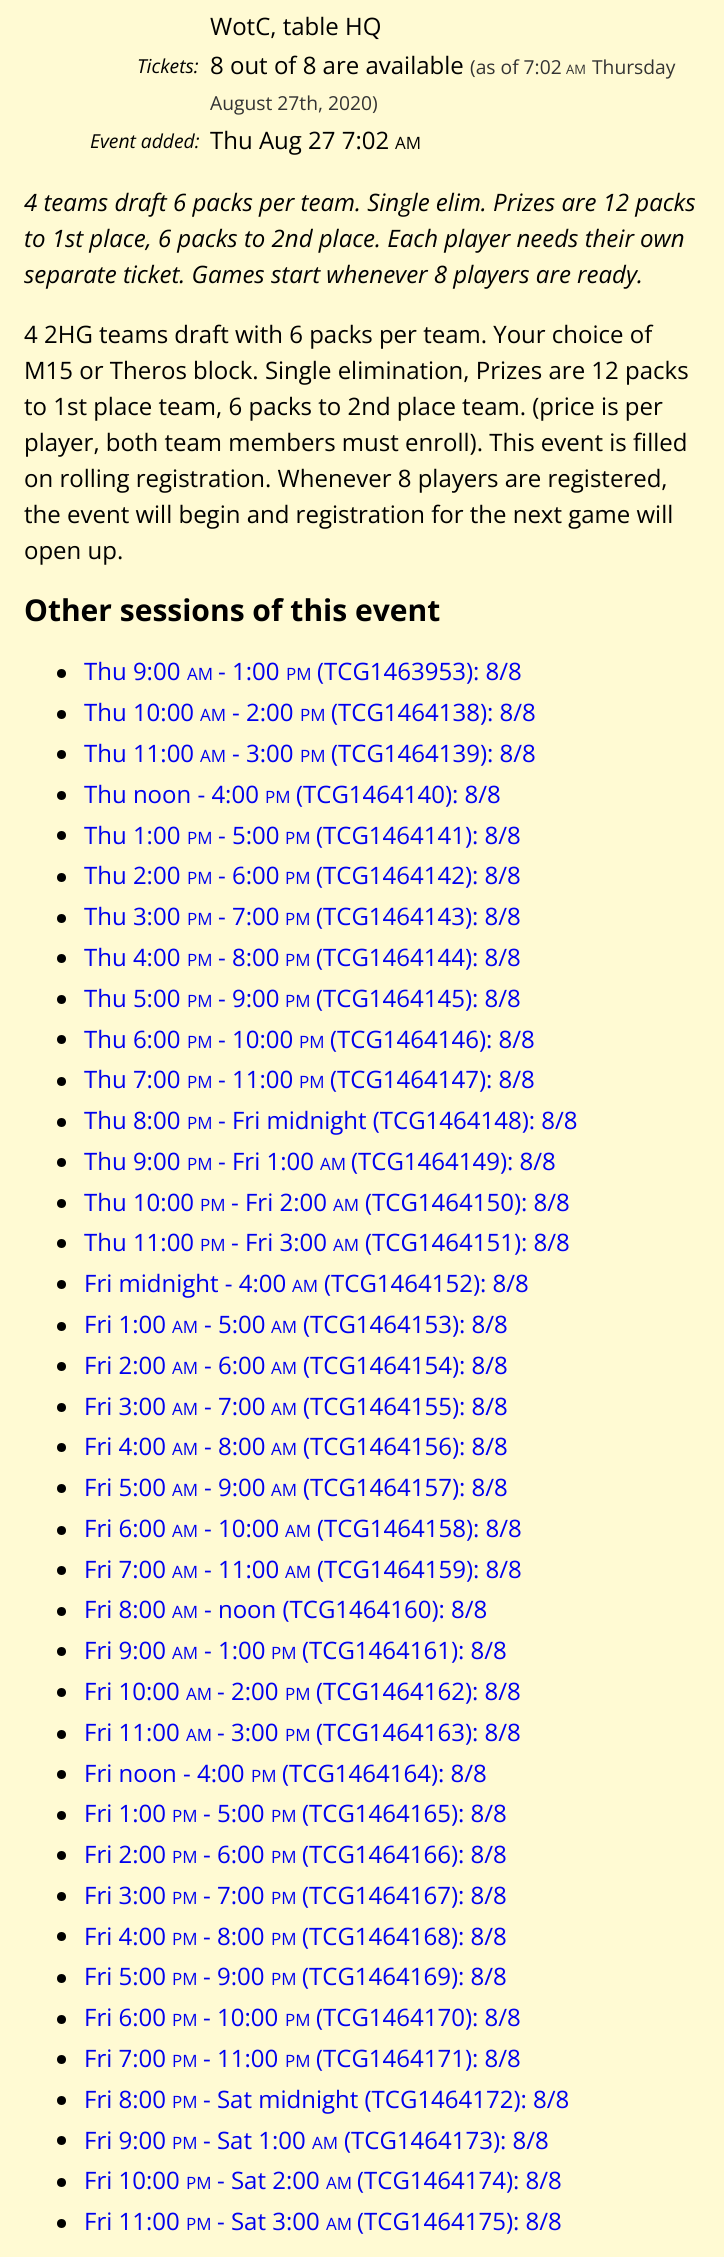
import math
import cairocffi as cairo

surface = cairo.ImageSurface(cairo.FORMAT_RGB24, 724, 2257)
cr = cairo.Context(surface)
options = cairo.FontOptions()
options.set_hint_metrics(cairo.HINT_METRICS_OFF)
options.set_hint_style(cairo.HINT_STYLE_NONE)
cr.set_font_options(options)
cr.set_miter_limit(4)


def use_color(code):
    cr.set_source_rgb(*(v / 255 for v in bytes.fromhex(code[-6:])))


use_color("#fffad3")
cr.paint()
cr.select_font_face("Open Sans")
cr.set_font_size(24)
use_color("#000000")
cr.move_to(210, 35)
cr.show_text("WotC, table HQ")
cr.select_font_face("Open Sans", cairo.FONT_SLANT_ITALIC)
cr.set_font_size(19.25)
cr.move_to(137, 73)
cr.show_text("Tickets:")
cr.select_font_face("Open Sans")
cr.set_font_size(24)
cr.move_to(210, 74)
cr.show_text("8 out of 8 are available")
cr.set_font_size(19.25)
use_color("#333333")
cr.move_to(470, 74)
cr.show_text("(as of 7:02")
cr.set_font_size(13)
cr.move_to(566, 74)
cr.show_text("AM")
cr.set_font_size(19.25)
cr.move_to(592, 74)
cr.show_text("Thursday")
cr.move_to(210, 110)
cr.show_text("August 27th, 2020)")
cr.select_font_face("Open Sans", cairo.FONT_SLANT_ITALIC)
use_color("#000000")
cr.move_to(90, 148)
cr.show_text("Event added:")
cr.select_font_face("Open Sans")
cr.set_font_size(24)
cr.move_to(210, 149)
cr.show_text("Thu Aug 27 7:02")
cr.set_font_size(17)
cr.move_to(395, 149)
cr.show_text("AM")
cr.select_font_face("Open Sans", cairo.FONT_SLANT_ITALIC)
cr.set_font_size(24)
cr.move_to(24, 211)
cr.show_text("4 teams draft 6 packs per team. Single elim. Prizes are 12 packs")
cr.move_to(24, 247)
cr.show_text("to 1st place, 6 packs to 2nd place. Each player needs their own")
cr.move_to(24, 283)
cr.show_text("separate ticket. Games start whenever 8 players are ready.")
cr.select_font_face("Open Sans")
cr.move_to(24, 343)
cr.show_text("4 2HG teams draft with 6 packs per team. Your choice of")
cr.move_to(24, 379)
cr.show_text("M15 or Theros block. Single elimination, Prizes are 12 packs")
cr.move_to(24, 415)
cr.show_text("to 1st place team, 6 packs to 2nd place team. (price is per")
cr.move_to(24, 451)
cr.show_text("player, both team members must enroll). This event is filled")
cr.move_to(24, 487)
cr.show_text("on rolling registration. Whenever 8 players are registered,")
cr.move_to(24, 523)
cr.show_text("the event will begin and registration for the next game will")
cr.move_to(24, 559)
cr.show_text("open up.")
cr.select_font_face("Open Sans", cairo.FONT_SLANT_NORMAL, cairo.FONT_WEIGHT_BOLD)
cr.set_font_size(30)
cr.move_to(24, 621)
cr.show_text("Other sessions of this event")
cr.new_path()
cr.arc(61.5, 673.5, 4.5, 0, 2 * math.pi)
cr.fill()
cr.select_font_face("Open Sans")
cr.set_font_size(24)
use_color("#0000ee")
cr.move_to(84, 680)
cr.show_text("Thu 9:00")
cr.set_font_size(17)
cr.move_to(187, 680)
cr.show_text("AM")
cr.set_font_size(24)
cr.move_to(218, 680)
cr.show_text("- 1:00")
cr.set_font_size(17)
cr.move_to(286, 680)
cr.show_text("PM")
cr.set_font_size(24)
cr.move_to(317, 680)
cr.show_text("(TCG1463953): 8/8")
use_color("#000000")
cr.new_path()
cr.arc(61.5, 714.5, 4.5, 0, 2 * math.pi)
cr.fill()
use_color("#0000ee")
cr.move_to(84, 721)
cr.show_text("Thu 10:00")
cr.set_font_size(17)
cr.move_to(200, 721)
cr.show_text("AM")
cr.set_font_size(24)
cr.move_to(232, 721)
cr.show_text("- 2:00")
cr.set_font_size(17)
cr.move_to(300, 721)
cr.show_text("PM")
cr.set_font_size(24)
cr.move_to(331, 721)
cr.show_text("(TCG1464138): 8/8")
use_color("#000000")
cr.new_path()
cr.arc(61.5, 754.5, 4.5, 0, 2 * math.pi)
cr.fill()
use_color("#0000ee")
cr.move_to(84, 762)
cr.show_text("Thu 11:00")
cr.set_font_size(17)
cr.move_to(200, 762)
cr.show_text("AM")
cr.set_font_size(24)
cr.move_to(232, 762)
cr.show_text("- 3:00")
cr.set_font_size(17)
cr.move_to(300, 762)
cr.show_text("PM")
cr.set_font_size(24)
cr.move_to(331, 762)
cr.show_text("(TCG1464139): 8/8")
use_color("#000000")
cr.new_path()
cr.arc(61.5, 795.5, 4.5, 0, 2 * math.pi)
cr.fill()
use_color("#0000ee")
cr.move_to(84, 803)
cr.show_text("Thu noon - 4:00")
cr.set_font_size(17)
cr.move_to(265, 803)
cr.show_text("PM")
cr.set_font_size(24)
cr.move_to(296, 803)
cr.show_text("(TCG1464140): 8/8")
use_color("#000000")
cr.new_path()
cr.arc(61.5, 835.5, 4.5, 0, 2 * math.pi)
cr.fill()
use_color("#0000ee")
cr.move_to(84, 844)
cr.show_text("Thu 1:00")
cr.set_font_size(17)
cr.move_to(187, 844)
cr.show_text("PM")
cr.set_font_size(24)
cr.move_to(218, 844)
cr.show_text("- 5:00")
cr.set_font_size(17)
cr.move_to(285, 844)
cr.show_text("PM")
cr.set_font_size(24)
cr.move_to(316, 844)
cr.show_text("(TCG1464141): 8/8")
use_color("#000000")
cr.new_path()
cr.arc(61.5, 877.5, 4.5, 0, 2 * math.pi)
cr.fill()
use_color("#0000ee")
cr.move_to(84, 884)
cr.show_text("Thu 2:00")
cr.set_font_size(17)
cr.move_to(187, 884)
cr.show_text("PM")
cr.set_font_size(24)
cr.move_to(218, 884)
cr.show_text("- 6:00")
cr.set_font_size(17)
cr.move_to(285, 884)
cr.show_text("PM")
cr.set_font_size(24)
cr.move_to(316, 884)
cr.show_text("(TCG1464142): 8/8")
use_color("#000000")
cr.new_path()
cr.arc(61.5, 918.5, 4.5, 0, 2 * math.pi)
cr.fill()
use_color("#0000ee")
cr.move_to(84, 925)
cr.show_text("Thu 3:00")
cr.set_font_size(17)
cr.move_to(187, 925)
cr.show_text("PM")
cr.set_font_size(24)
cr.move_to(218, 925)
cr.show_text("- 7:00")
cr.set_font_size(17)
cr.move_to(285, 925)
cr.show_text("PM")
cr.set_font_size(24)
cr.move_to(316, 925)
cr.show_text("(TCG1464143): 8/8")
use_color("#000000")
cr.new_path()
cr.arc(61.5, 958.5, 4.5, 0, 2 * math.pi)
cr.fill()
use_color("#0000ee")
cr.move_to(84, 966)
cr.show_text("Thu 4:00")
cr.set_font_size(17)
cr.move_to(187, 966)
cr.show_text("PM")
cr.set_font_size(24)
cr.move_to(218, 966)
cr.show_text("- 8:00")
cr.set_font_size(17)
cr.move_to(285, 966)
cr.show_text("PM")
cr.set_font_size(24)
cr.move_to(316, 966)
cr.show_text("(TCG1464144): 8/8")
use_color("#000000")
cr.new_path()
cr.arc(61.5, 999.5, 4.5, 0, 2 * math.pi)
cr.fill()
use_color("#0000ee")
cr.move_to(84, 1007)
cr.show_text("Thu 5:00")
cr.set_font_size(17)
cr.move_to(187, 1007)
cr.show_text("PM")
cr.set_font_size(24)
cr.move_to(218, 1007)
cr.show_text("- 9:00")
cr.set_font_size(17)
cr.move_to(285, 1007)
cr.show_text("PM")
cr.set_font_size(24)
cr.move_to(316, 1007)
cr.show_text("(TCG1464145): 8/8")
use_color("#000000")
cr.new_path()
cr.arc(61.5, 1039.5, 4.5, 0, 2 * math.pi)
cr.fill()
use_color("#0000ee")
cr.move_to(84, 1048)
cr.show_text("Thu 6:00")
cr.set_font_size(17)
cr.move_to(187, 1048)
cr.show_text("PM")
cr.set_font_size(24)
cr.move_to(218, 1048)
cr.show_text("- 10:00")
cr.set_font_size(17)
cr.move_to(299, 1048)
cr.show_text("PM")
cr.set_font_size(24)
cr.move_to(330, 1048)
cr.show_text("(TCG1464146): 8/8")
use_color("#000000")
cr.new_path()
cr.arc(61.5, 1081.5, 4.5, 0, 2 * math.pi)
cr.fill()
use_color("#0000ee")
cr.move_to(84, 1088)
cr.show_text("Thu 7:00")
cr.set_font_size(17)
cr.move_to(187, 1088)
cr.show_text("PM")
cr.set_font_size(24)
cr.move_to(218, 1088)
cr.show_text("- 11:00")
cr.set_font_size(17)
cr.move_to(299, 1088)
cr.show_text("PM")
cr.set_font_size(24)
cr.move_to(330, 1088)
cr.show_text("(TCG1464147): 8/8")
use_color("#000000")
cr.new_path()
cr.arc(61.5, 1122.5, 4.5, 0, 2 * math.pi)
cr.fill()
use_color("#0000ee")
cr.move_to(84, 1129)
cr.show_text("Thu 8:00")
cr.set_font_size(17)
cr.move_to(187, 1129)
cr.show_text("PM")
cr.set_font_size(24)
cr.move_to(218, 1129)
cr.show_text("- Fri midnight (TCG1464148): 8/8")
use_color("#000000")
cr.new_path()
cr.arc(61.5, 1162.5, 4.5, 0, 2 * math.pi)
cr.fill()
use_color("#0000ee")
cr.move_to(84, 1170)
cr.show_text("Thu 9:00")
cr.set_font_size(17)
cr.move_to(187, 1170)
cr.show_text("PM")
cr.set_font_size(24)
cr.move_to(218, 1170)
cr.show_text("- Fri 1:00")
cr.set_font_size(17)
cr.move_to(320, 1170)
cr.show_text("AM")
cr.set_font_size(24)
cr.move_to(351, 1170)
cr.show_text("(TCG1464149): 8/8")
use_color("#000000")
cr.new_path()
cr.arc(61.5, 1203.5, 4.5, 0, 2 * math.pi)
cr.fill()
use_color("#0000ee")
cr.move_to(84, 1211)
cr.show_text("Thu 10:00")
cr.set_font_size(17)
cr.move_to(200, 1211)
cr.show_text("PM")
cr.set_font_size(24)
cr.move_to(231, 1211)
cr.show_text("- Fri 2:00")
cr.set_font_size(17)
cr.move_to(333, 1211)
cr.show_text("AM")
cr.set_font_size(24)
cr.move_to(365, 1211)
cr.show_text("(TCG1464150): 8/8")
use_color("#000000")
cr.new_path()
cr.arc(61.5, 1243.5, 4.5, 0, 2 * math.pi)
cr.fill()
use_color("#0000ee")
cr.move_to(84, 1251)
cr.show_text("Thu 11:00")
cr.set_font_size(17)
cr.move_to(200, 1251)
cr.show_text("PM")
cr.set_font_size(24)
cr.move_to(231, 1251)
cr.show_text("- Fri 3:00")
cr.set_font_size(17)
cr.move_to(333, 1251)
cr.show_text("AM")
cr.set_font_size(24)
cr.move_to(365, 1251)
cr.show_text("(TCG1464151): 8/8")
use_color("#000000")
cr.new_path()
cr.arc(61.5, 1284.5, 4.5, 0, 2 * math.pi)
cr.fill()
use_color("#0000ee")
cr.move_to(84, 1292)
cr.show_text("Fri midnight - 4:00")
cr.set_font_size(17)
cr.move_to(292, 1292)
cr.show_text("AM")
cr.set_font_size(24)
cr.move_to(324, 1292)
cr.show_text("(TCG1464152): 8/8")
use_color("#000000")
cr.new_path()
cr.arc(61.5, 1326.5, 4.5, 0, 2 * math.pi)
cr.fill()
use_color("#0000ee")
cr.move_to(84, 1333)
cr.show_text("Fri 1:00")
cr.set_font_size(17)
cr.move_to(172, 1333)
cr.show_text("AM")
cr.set_font_size(24)
cr.move_to(204, 1333)
cr.show_text("- 5:00")
cr.set_font_size(17)
cr.move_to(271, 1333)
cr.show_text("AM")
cr.set_font_size(24)
cr.move_to(303, 1333)
cr.show_text("(TCG1464153): 8/8")
use_color("#000000")
cr.new_path()
cr.arc(61.5, 1366.5, 4.5, 0, 2 * math.pi)
cr.fill()
use_color("#0000ee")
cr.move_to(84, 1374)
cr.show_text("Fri 2:00")
cr.set_font_size(17)
cr.move_to(172, 1374)
cr.show_text("AM")
cr.set_font_size(24)
cr.move_to(204, 1374)
cr.show_text("- 6:00")
cr.set_font_size(17)
cr.move_to(271, 1374)
cr.show_text("AM")
cr.set_font_size(24)
cr.move_to(303, 1374)
cr.show_text("(TCG1464154): 8/8")
use_color("#000000")
cr.new_path()
cr.arc(61.5, 1407.5, 4.5, 0, 2 * math.pi)
cr.fill()
use_color("#0000ee")
cr.move_to(84, 1415)
cr.show_text("Fri 3:00")
cr.set_font_size(17)
cr.move_to(172, 1415)
cr.show_text("AM")
cr.set_font_size(24)
cr.move_to(204, 1415)
cr.show_text("- 7:00")
cr.set_font_size(17)
cr.move_to(271, 1415)
cr.show_text("AM")
cr.set_font_size(24)
cr.move_to(303, 1415)
cr.show_text("(TCG1464155): 8/8")
use_color("#000000")
cr.new_path()
cr.arc(61.5, 1447.5, 4.5, 0, 2 * math.pi)
cr.fill()
use_color("#0000ee")
cr.move_to(84, 1455)
cr.show_text("Fri 4:00")
cr.set_font_size(17)
cr.move_to(172, 1455)
cr.show_text("AM")
cr.set_font_size(24)
cr.move_to(204, 1455)
cr.show_text("- 8:00")
cr.set_font_size(17)
cr.move_to(271, 1455)
cr.show_text("AM")
cr.set_font_size(24)
cr.move_to(303, 1455)
cr.show_text("(TCG1464156): 8/8")
use_color("#000000")
cr.new_path()
cr.arc(61.5, 1488.5, 4.5, 0, 2 * math.pi)
cr.fill()
use_color("#0000ee")
cr.move_to(84, 1496)
cr.show_text("Fri 5:00")
cr.set_font_size(17)
cr.move_to(172, 1496)
cr.show_text("AM")
cr.set_font_size(24)
cr.move_to(204, 1496)
cr.show_text("- 9:00")
cr.set_font_size(17)
cr.move_to(271, 1496)
cr.show_text("AM")
cr.set_font_size(24)
cr.move_to(303, 1496)
cr.show_text("(TCG1464157): 8/8")
use_color("#000000")
cr.new_path()
cr.arc(61.5, 1530.5, 4.5, 0, 2 * math.pi)
cr.fill()
use_color("#0000ee")
cr.move_to(84, 1537)
cr.show_text("Fri 6:00")
cr.set_font_size(17)
cr.move_to(172, 1537)
cr.show_text("AM")
cr.set_font_size(24)
cr.move_to(204, 1537)
cr.show_text("- 10:00")
cr.set_font_size(17)
cr.move_to(285, 1537)
cr.show_text("AM")
cr.set_font_size(24)
cr.move_to(317, 1537)
cr.show_text("(TCG1464158): 8/8")
use_color("#000000")
cr.new_path()
cr.arc(61.5, 1570.5, 4.5, 0, 2 * math.pi)
cr.fill()
use_color("#0000ee")
cr.move_to(84, 1578)
cr.show_text("Fri 7:00")
cr.set_font_size(17)
cr.move_to(172, 1578)
cr.show_text("AM")
cr.set_font_size(24)
cr.move_to(204, 1578)
cr.show_text("- 11:00")
cr.set_font_size(17)
cr.move_to(285, 1578)
cr.show_text("AM")
cr.set_font_size(24)
cr.move_to(317, 1578)
cr.show_text("(TCG1464159): 8/8")
use_color("#000000")
cr.new_path()
cr.arc(61.5, 1611.5, 4.5, 0, 2 * math.pi)
cr.fill()
use_color("#0000ee")
cr.move_to(84, 1618)
cr.show_text("Fri 8:00")
cr.set_font_size(17)
cr.move_to(172, 1618)
cr.show_text("AM")
cr.set_font_size(24)
cr.move_to(204, 1618)
cr.show_text("- noon (TCG1464160): 8/8")
use_color("#000000")
cr.new_path()
cr.arc(61.5, 1651.5, 4.5, 0, 2 * math.pi)
cr.fill()
use_color("#0000ee")
cr.move_to(84, 1659)
cr.show_text("Fri 9:00")
cr.set_font_size(17)
cr.move_to(172, 1659)
cr.show_text("AM")
cr.set_font_size(24)
cr.move_to(204, 1659)
cr.show_text("- 1:00")
cr.set_font_size(17)
cr.move_to(271, 1659)
cr.show_text("PM")
cr.set_font_size(24)
cr.move_to(302, 1659)
cr.show_text("(TCG1464161): 8/8")
use_color("#000000")
cr.new_path()
cr.arc(61.5, 1692.5, 4.5, 0, 2 * math.pi)
cr.fill()
use_color("#0000ee")
cr.move_to(84, 1700)
cr.show_text("Fri 10:00")
cr.set_font_size(17)
cr.move_to(186, 1700)
cr.show_text("AM")
cr.set_font_size(24)
cr.move_to(217, 1700)
cr.show_text("- 2:00")
cr.set_font_size(17)
cr.move_to(285, 1700)
cr.show_text("PM")
cr.set_font_size(24)
cr.move_to(316, 1700)
cr.show_text("(TCG1464162): 8/8")
use_color("#000000")
cr.new_path()
cr.arc(61.5, 1734.5, 4.5, 0, 2 * math.pi)
cr.fill()
use_color("#0000ee")
cr.move_to(84, 1741)
cr.show_text("Fri 11:00")
cr.set_font_size(17)
cr.move_to(186, 1741)
cr.show_text("AM")
cr.set_font_size(24)
cr.move_to(217, 1741)
cr.show_text("- 3:00")
cr.set_font_size(17)
cr.move_to(285, 1741)
cr.show_text("PM")
cr.set_font_size(24)
cr.move_to(316, 1741)
cr.show_text("(TCG1464163): 8/8")
use_color("#000000")
cr.new_path()
cr.arc(61.5, 1774.5, 4.5, 0, 2 * math.pi)
cr.fill()
use_color("#0000ee")
cr.move_to(84, 1782)
cr.show_text("Fri noon - 4:00")
cr.set_font_size(17)
cr.move_to(251, 1782)
cr.show_text("PM")
cr.set_font_size(24)
cr.move_to(282, 1782)
cr.show_text("(TCG1464164): 8/8")
use_color("#000000")
cr.new_path()
cr.arc(61.5, 1815.5, 4.5, 0, 2 * math.pi)
cr.fill()
use_color("#0000ee")
cr.move_to(84, 1822)
cr.show_text("Fri 1:00")
cr.set_font_size(17)
cr.move_to(172, 1822)
cr.show_text("PM")
cr.set_font_size(24)
cr.move_to(203, 1822)
cr.show_text("- 5:00")
cr.set_font_size(17)
cr.move_to(271, 1822)
cr.show_text("PM")
cr.set_font_size(24)
cr.move_to(302, 1822)
cr.show_text("(TCG1464165): 8/8")
use_color("#000000")
cr.new_path()
cr.arc(61.5, 1855.5, 4.5, 0, 2 * math.pi)
cr.fill()
use_color("#0000ee")
cr.move_to(84, 1863)
cr.show_text("Fri 2:00")
cr.set_font_size(17)
cr.move_to(172, 1863)
cr.show_text("PM")
cr.set_font_size(24)
cr.move_to(203, 1863)
cr.show_text("- 6:00")
cr.set_font_size(17)
cr.move_to(271, 1863)
cr.show_text("PM")
cr.set_font_size(24)
cr.move_to(302, 1863)
cr.show_text("(TCG1464166): 8/8")
use_color("#000000")
cr.new_path()
cr.arc(61.5, 1896.5, 4.5, 0, 2 * math.pi)
cr.fill()
use_color("#0000ee")
cr.move_to(84, 1904)
cr.show_text("Fri 3:00")
cr.set_font_size(17)
cr.move_to(172, 1904)
cr.show_text("PM")
cr.set_font_size(24)
cr.move_to(203, 1904)
cr.show_text("- 7:00")
cr.set_font_size(17)
cr.move_to(271, 1904)
cr.show_text("PM")
cr.set_font_size(24)
cr.move_to(302, 1904)
cr.show_text("(TCG1464167): 8/8")
use_color("#000000")
cr.new_path()
cr.arc(61.5, 1936.5, 4.5, 0, 2 * math.pi)
cr.fill()
use_color("#0000ee")
cr.move_to(84, 1945)
cr.show_text("Fri 4:00")
cr.set_font_size(17)
cr.move_to(172, 1945)
cr.show_text("PM")
cr.set_font_size(24)
cr.move_to(203, 1945)
cr.show_text("- 8:00")
cr.set_font_size(17)
cr.move_to(271, 1945)
cr.show_text("PM")
cr.set_font_size(24)
cr.move_to(302, 1945)
cr.show_text("(TCG1464168): 8/8")
use_color("#000000")
cr.new_path()
cr.arc(61.5, 1978.5, 4.5, 0, 2 * math.pi)
cr.fill()
use_color("#0000ee")
cr.move_to(84, 1985)
cr.show_text("Fri 5:00")
cr.set_font_size(17)
cr.move_to(172, 1985)
cr.show_text("PM")
cr.set_font_size(24)
cr.move_to(203, 1985)
cr.show_text("- 9:00")
cr.set_font_size(17)
cr.move_to(271, 1985)
cr.show_text("PM")
cr.set_font_size(24)
cr.move_to(302, 1985)
cr.show_text("(TCG1464169): 8/8")
use_color("#000000")
cr.new_path()
cr.arc(61.5, 2019.5, 4.5, 0, 2 * math.pi)
cr.fill()
use_color("#0000ee")
cr.move_to(84, 2026)
cr.show_text("Fri 6:00")
cr.set_font_size(17)
cr.move_to(172, 2026)
cr.show_text("PM")
cr.set_font_size(24)
cr.move_to(203, 2026)
cr.show_text("- 10:00")
cr.set_font_size(17)
cr.move_to(285, 2026)
cr.show_text("PM")
cr.set_font_size(24)
cr.move_to(316, 2026)
cr.show_text("(TCG1464170): 8/8")
use_color("#000000")
cr.new_path()
cr.arc(61.5, 2059.5, 4.5, 0, 2 * math.pi)
cr.fill()
use_color("#0000ee")
cr.move_to(84, 2067)
cr.show_text("Fri 7:00")
cr.set_font_size(17)
cr.move_to(172, 2067)
cr.show_text("PM")
cr.set_font_size(24)
cr.move_to(203, 2067)
cr.show_text("- 11:00")
cr.set_font_size(17)
cr.move_to(285, 2067)
cr.show_text("PM")
cr.set_font_size(24)
cr.move_to(316, 2067)
cr.show_text("(TCG1464171): 8/8")
use_color("#000000")
cr.new_path()
cr.arc(61.5, 2100.5, 4.5, 0, 2 * math.pi)
cr.fill()
use_color("#0000ee")
cr.move_to(84, 2108)
cr.show_text("Fri 8:00")
cr.set_font_size(17)
cr.move_to(172, 2108)
cr.show_text("PM")
cr.set_font_size(24)
cr.move_to(203, 2108)
cr.show_text("- Sat midnight (TCG1464172): 8/8")
use_color("#000000")
cr.new_path()
cr.arc(61.5, 2140.5, 4.5, 0, 2 * math.pi)
cr.fill()
use_color("#0000ee")
cr.move_to(84, 2149)
cr.show_text("Fri 9:00")
cr.set_font_size(17)
cr.move_to(172, 2149)
cr.show_text("PM")
cr.set_font_size(24)
cr.move_to(203, 2149)
cr.show_text("- Sat 1:00")
cr.set_font_size(17)
cr.move_to(312, 2149)
cr.show_text("AM")
cr.set_font_size(24)
cr.move_to(344, 2149)
cr.show_text("(TCG1464173): 8/8")
use_color("#000000")
cr.new_path()
cr.arc(61.5, 2182.5, 4.5, 0, 2 * math.pi)
cr.fill()
use_color("#0000ee")
cr.move_to(84, 2189)
cr.show_text("Fri 10:00")
cr.set_font_size(17)
cr.move_to(186, 2189)
cr.show_text("PM")
cr.set_font_size(24)
cr.move_to(217, 2189)
cr.show_text("- Sat 2:00")
cr.set_font_size(17)
cr.move_to(326, 2189)
cr.show_text("AM")
cr.set_font_size(24)
cr.move_to(357, 2189)
cr.show_text("(TCG1464174): 8/8")
use_color("#000000")
cr.new_path()
cr.arc(61.5, 2223.5, 4.5, 0, 2 * math.pi)
cr.fill()
use_color("#0000ee")
cr.move_to(84, 2230)
cr.show_text("Fri 11:00")
cr.set_font_size(17)
cr.move_to(186, 2230)
cr.show_text("PM")
cr.set_font_size(24)
cr.move_to(217, 2230)
cr.show_text("- Sat 3:00")
cr.set_font_size(17)
cr.move_to(326, 2230)
cr.show_text("AM")
cr.set_font_size(24)
cr.move_to(357, 2230)
cr.show_text("(TCG1464175): 8/8")
surface.write_to_png("result.png")
